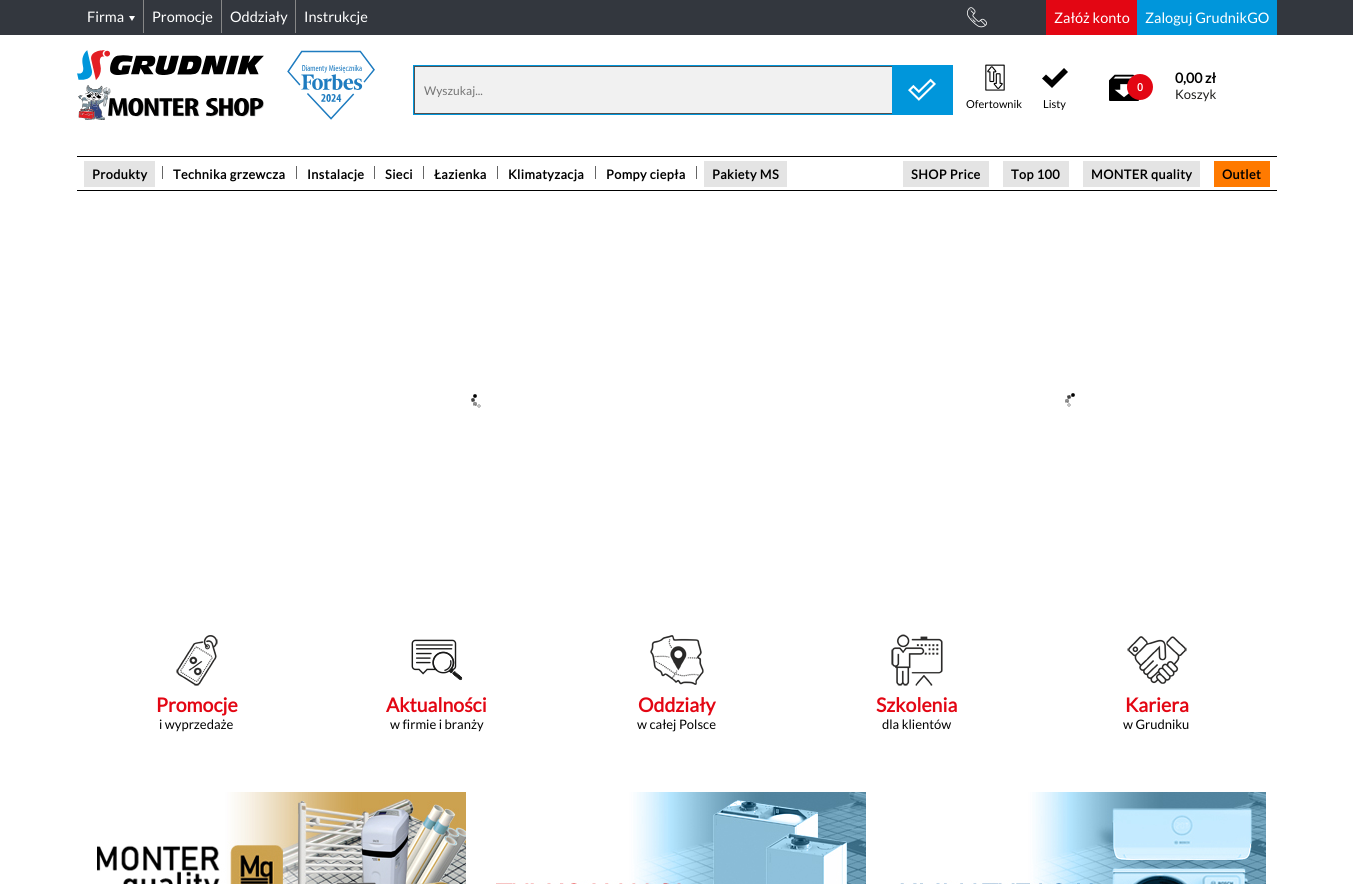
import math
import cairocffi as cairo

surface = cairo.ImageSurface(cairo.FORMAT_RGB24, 1353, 884)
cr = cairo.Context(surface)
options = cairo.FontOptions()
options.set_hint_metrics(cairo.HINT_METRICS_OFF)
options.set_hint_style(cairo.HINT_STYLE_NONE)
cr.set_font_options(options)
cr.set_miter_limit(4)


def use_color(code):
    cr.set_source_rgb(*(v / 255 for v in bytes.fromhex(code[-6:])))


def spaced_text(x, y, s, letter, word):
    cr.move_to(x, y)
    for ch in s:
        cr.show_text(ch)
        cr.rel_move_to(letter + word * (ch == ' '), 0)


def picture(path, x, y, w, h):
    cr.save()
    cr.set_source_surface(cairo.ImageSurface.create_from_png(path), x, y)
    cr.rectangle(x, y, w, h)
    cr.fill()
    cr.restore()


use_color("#ffffff")
cr.paint()
use_color("#33373e")
cr.rectangle(0, 0, 1353, 35)
cr.fill()
use_color("#878787")
cr.rectangle(143, 0, 1, 33)
cr.fill()
cr.select_font_face("Lato")
cr.set_font_size(14.5)
use_color("#ffffff")
cr.move_to(87, 22)
cr.show_text("Firma")
cr.new_path()
cr.move_to(132, 21)
cr.line_to(129, 16)
cr.line_to(135, 16)
cr.close_path()
cr.fill()
use_color("#878787")
cr.rectangle(221, 0, 1, 33)
cr.fill()
use_color("#ffffff")
cr.move_to(152, 22)
cr.show_text("Promocje")
use_color("#878787")
cr.rectangle(295, 0, 1, 33)
cr.fill()
use_color("#ffffff")
cr.move_to(230, 22)
cr.show_text("Oddziały")
cr.move_to(304, 22)
cr.show_text("Instrukcje")
picture("img1.png", 967, 7, 20, 21)
use_color("#e30613")
cr.rectangle(1046, 0, 91, 35)
cr.fill()
use_color("#ffffff")
cr.move_to(1054, 23)
cr.show_text("Załóż konto")
use_color("#0096db")
cr.rectangle(1137, 0, 140, 35)
cr.fill()
use_color("#ffffff")
cr.move_to(1145, 23)
cr.show_text("Zaloguj GrudnikGO")
picture("img2.png", 77, 50, 298, 70)
cr.rectangle(413.5, 65.5, 539, 49)
use_color("#0096db")
cr.set_line_width(1)
cr.stroke()
use_color("#515151")
cr.rectangle(414, 66, 478, 1)
cr.fill()
cr.rectangle(414, 113, 478, 1)
cr.fill()
cr.rectangle(414, 66, 1, 48)
cr.fill()
use_color("#f1f1f1")
cr.rectangle(415, 67, 477, 46)
cr.fill()
cr.set_font_size(12)
use_color("#757575")
cr.move_to(424, 95)
cr.show_text("Wyszukaj...")
use_color("#0096db")
cr.rectangle(892, 66, 60, 48)
cr.fill()
picture("img3.png", 908, 78, 28, 23)
picture("img4.png", 1109, 74, 30, 27)
use_color("#e30613")
cr.arc(1140, 87, 13, 0, 2 * math.pi)
cr.fill()
cr.select_font_face("Open Sans SemiBold")
cr.set_font_size(11)
use_color("#ffffff")
cr.move_to(1137, 91)
cr.show_text("0")
cr.select_font_face("Lato", cairo.FONT_SLANT_NORMAL, cairo.FONT_WEIGHT_BOLD)
cr.set_font_size(14)
use_color("#000000")
cr.move_to(1175, 83)
cr.show_text("0,00 zł")
cr.select_font_face("Lato")
cr.set_font_size(13)
use_color("#1d1d1b")
cr.move_to(1175, 99)
cr.show_text("Koszyk")
picture("img5.png", 985, 64, 20, 27)
cr.set_font_size(11)
use_color("#000000")
cr.move_to(966, 108)
cr.show_text("Ofertownik")
cr.new_path()
cr.move_to(1064, 68)
cr.line_to(1052, 80)
cr.line_to(1046, 74.5)
cr.line_to(1042, 78.5)
cr.line_to(1052, 88)
cr.line_to(1068, 72)
cr.close_path()
cr.fill()
cr.move_to(1043, 108)
cr.show_text("Listy")
cr.rectangle(77, 156, 1200, 1)
cr.fill()
cr.rectangle(77, 190, 1200, 1)
cr.fill()
use_color("#e4e4e4")
cr.rectangle(84, 161, 71, 26)
cr.fill()
cr.select_font_face("Lato", cairo.FONT_SLANT_NORMAL, cairo.FONT_WEIGHT_BOLD)
cr.set_font_size(12.75)
use_color("#000000")
spaced_text(92, 179, "Produkty", 0.4, 0)
use_color("#666666")
cr.rectangle(162, 166, 1, 13)
cr.fill()
use_color("#000000")
spaced_text(173, 179, "Technika grzewcza", 0.4, 0)
use_color("#666666")
cr.rectangle(296, 166, 1, 13)
cr.fill()
use_color("#000000")
spaced_text(307, 179, "Instalacje", 0.4, 0)
use_color("#666666")
cr.rectangle(374, 166, 1, 13)
cr.fill()
use_color("#000000")
spaced_text(385, 179, "Sieci", 0.4, 0)
use_color("#666666")
cr.rectangle(423, 166, 1, 13)
cr.fill()
use_color("#000000")
spaced_text(434, 179, "Łazienka", 0.4, 0)
use_color("#666666")
cr.rectangle(497, 166, 1, 13)
cr.fill()
use_color("#000000")
spaced_text(508, 179, "Klimatyzacja", 0.4, 0)
use_color("#666666")
cr.rectangle(595, 166, 1, 13)
cr.fill()
use_color("#000000")
spaced_text(606, 179, "Pompy ciepła", 0.4, 0)
use_color("#666666")
cr.rectangle(696, 166, 1, 13)
cr.fill()
use_color("#e4e4e4")
cr.rectangle(704, 161, 83, 26)
cr.fill()
use_color("#000000")
spaced_text(712, 179, "Pakiety MS", 0.4, 0)
use_color("#e4e4e4")
cr.rectangle(903, 161, 86, 26)
cr.fill()
use_color("#000000")
spaced_text(911, 179, "SHOP Price", 0.4, 0)
use_color("#e4e4e4")
cr.rectangle(1003, 161, 66, 26)
cr.fill()
use_color("#000000")
spaced_text(1011, 179, "Top 100", 0.4, 0)
use_color("#e4e4e4")
cr.rectangle(1083, 161, 117, 26)
cr.fill()
use_color("#000000")
spaced_text(1091, 179, "MONTER quality", 0.4, 0)
use_color("#ff7a00")
cr.rectangle(1214, 161, 56, 26)
cr.fill()
use_color("#000000")
spaced_text(1222, 179, "Outlet", 0.4, 0)
picture("img6.png", 471, 394, 10, 14)
picture("img7.png", 1065, 393, 10, 14)
picture("img8.png", 176, 635, 42, 51)
cr.set_font_size(19.5)
use_color("#e30613")
cr.move_to(156, 712)
cr.show_text("Promocje")
cr.select_font_face("Lato")
cr.set_font_size(13)
use_color("#000000")
cr.move_to(159, 729)
cr.show_text("i wyprzedaże")
picture("img9.png", 411, 639, 52, 42)
cr.select_font_face("Lato", cairo.FONT_SLANT_NORMAL, cairo.FONT_WEIGHT_BOLD)
cr.set_font_size(19.5)
use_color("#e30613")
cr.move_to(386, 712)
cr.show_text("Aktualności")
cr.select_font_face("Lato")
cr.set_font_size(13)
use_color("#000000")
cr.move_to(390, 729)
cr.show_text("w firmie i branży")
picture("img10.png", 650, 635, 54, 50)
cr.select_font_face("Lato", cairo.FONT_SLANT_NORMAL, cairo.FONT_WEIGHT_BOLD)
cr.set_font_size(19.5)
use_color("#e30613")
cr.move_to(638, 712)
cr.show_text("Oddziały")
cr.select_font_face("Lato")
cr.set_font_size(13)
use_color("#000000")
cr.move_to(637, 729)
cr.show_text("w całej Polsce")
picture("img11.png", 891, 634, 52, 52)
cr.select_font_face("Lato", cairo.FONT_SLANT_NORMAL, cairo.FONT_WEIGHT_BOLD)
cr.set_font_size(19.5)
use_color("#e30613")
cr.move_to(876, 712)
cr.show_text("Szkolenia")
cr.select_font_face("Lato")
cr.set_font_size(13)
use_color("#000000")
cr.move_to(882, 729)
cr.show_text("dla klientów")
picture("img12.png", 1127, 636, 60, 48)
cr.select_font_face("Lato", cairo.FONT_SLANT_NORMAL, cairo.FONT_WEIGHT_BOLD)
cr.set_font_size(19.5)
use_color("#e30613")
cr.move_to(1125, 712)
cr.show_text("Kariera")
cr.select_font_face("Lato")
cr.set_font_size(13)
use_color("#000000")
cr.move_to(1123, 729)
cr.show_text("w Grudniku")
picture("img13.png", 97, 792, 369, 92)
picture("img14.png", 496, 792, 370, 92)
picture("img15.png", 900, 792, 366, 92)
surface.write_to_png("result.png")
